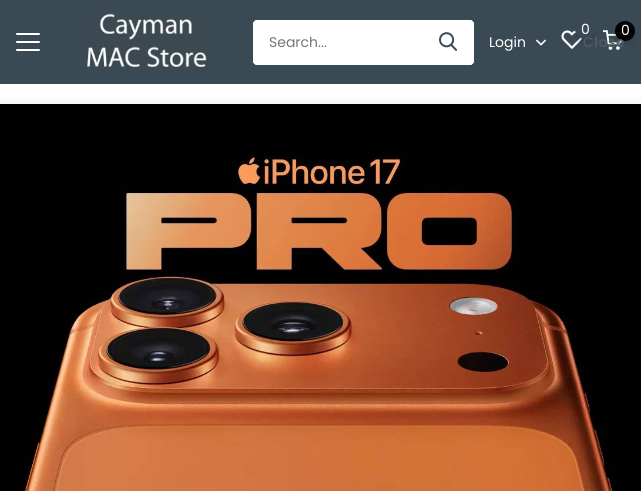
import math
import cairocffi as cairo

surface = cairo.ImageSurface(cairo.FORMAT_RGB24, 641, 491)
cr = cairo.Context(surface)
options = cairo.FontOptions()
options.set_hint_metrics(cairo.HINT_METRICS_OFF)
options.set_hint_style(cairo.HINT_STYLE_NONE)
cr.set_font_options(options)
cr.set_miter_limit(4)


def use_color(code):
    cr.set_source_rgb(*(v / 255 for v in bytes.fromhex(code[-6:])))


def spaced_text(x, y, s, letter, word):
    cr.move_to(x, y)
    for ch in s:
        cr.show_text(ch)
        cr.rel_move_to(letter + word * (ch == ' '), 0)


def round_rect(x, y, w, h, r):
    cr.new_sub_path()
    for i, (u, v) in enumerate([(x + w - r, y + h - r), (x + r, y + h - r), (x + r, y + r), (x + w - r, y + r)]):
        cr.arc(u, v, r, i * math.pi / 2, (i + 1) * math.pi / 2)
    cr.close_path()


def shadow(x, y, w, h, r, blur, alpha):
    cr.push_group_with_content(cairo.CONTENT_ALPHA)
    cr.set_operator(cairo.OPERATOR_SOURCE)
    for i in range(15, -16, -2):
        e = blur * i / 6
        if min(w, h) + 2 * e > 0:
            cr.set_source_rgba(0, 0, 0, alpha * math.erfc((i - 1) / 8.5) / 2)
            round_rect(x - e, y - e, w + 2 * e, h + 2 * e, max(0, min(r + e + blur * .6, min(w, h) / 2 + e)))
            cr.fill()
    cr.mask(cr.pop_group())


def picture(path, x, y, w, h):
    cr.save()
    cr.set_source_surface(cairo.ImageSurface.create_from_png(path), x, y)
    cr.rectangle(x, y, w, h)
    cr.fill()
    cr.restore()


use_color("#ffffff")
cr.paint()
use_color("#000000")
shadow(0, 106, 641, 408, 0, 7.5, 0.08)
use_color("#394a54")
cr.rectangle(0, 0, 641, 84)
cr.fill()
use_color("#ffffff")
round_rect(16, 33, 24, 2, 1)
cr.fill()
round_rect(16, 41, 24, 2, 1)
cr.fill()
round_rect(16, 49, 24, 2, 1)
cr.fill()
picture("img1.png", 87, 13, 120, 54)
picture("img2.png", 561, 30, 21, 19)
use_color("#282830")
shadow(575, 23, 20, 20, 10, 2, 0.25)
use_color("#394a54")
cr.arc(585, 29, 10, 0, 2 * math.pi)
cr.fill()
cr.select_font_face("Poppins")
cr.set_font_size(14)
use_color("#ffffff")
cr.move_to(581, 34)
cr.show_text("0")
picture("img3.png", 603, 30, 20, 20)
use_color("#282830")
shadow(615, 25, 20, 20, 10, 2, 0.25)
use_color("#000000")
cr.arc(625, 31, 10, 0, 2 * math.pi)
cr.fill()
use_color("#ffffff")
cr.move_to(621, 35)
cr.show_text("0")
cr.new_path()
cr.move_to(257, 20)
cr.line_to(424, 20)
cr.line_to(424, 65)
cr.line_to(257, 65)
cr.curve_to(255, 65, 253, 63, 253, 61)
cr.line_to(253, 24)
cr.curve_to(253, 22, 255, 20, 257, 20)
cr.close_path()
cr.fill()
cr.set_fill_rule(cairo.FILL_RULE_EVEN_ODD)
cr.new_path()
cr.move_to(257, 20)
cr.line_to(424, 20)
cr.line_to(424, 65)
cr.line_to(257, 65)
cr.curve_to(255, 65, 253, 63, 253, 61)
cr.line_to(253, 24)
cr.curve_to(253, 22, 255, 20, 257, 20)
cr.close_path()
cr.move_to(257, 21)
cr.line_to(424, 21)
cr.line_to(424, 64)
cr.line_to(257, 64)
cr.curve_to(255, 64, 254, 63, 254, 61)
cr.line_to(254, 24)
cr.curve_to(254, 22, 255, 21, 257, 21)
cr.close_path()
cr.fill()
use_color("#757575")
cr.move_to(269, 47)
cr.show_text("Search...")
use_color("#ffffff")
cr.new_path()
cr.move_to(424, 20)
cr.line_to(470, 20)
cr.curve_to(472, 20, 474, 22, 474, 24)
cr.line_to(474, 61)
cr.curve_to(474, 63, 472, 65, 470, 65)
cr.line_to(424, 65)
cr.close_path()
cr.fill()
cr.new_path()
cr.move_to(424, 20)
cr.line_to(470, 20)
cr.curve_to(472, 20, 474, 22, 474, 24)
cr.line_to(474, 61)
cr.curve_to(474, 63, 472, 65, 470, 65)
cr.line_to(424, 65)
cr.close_path()
cr.move_to(424, 21)
cr.line_to(470, 21)
cr.curve_to(472, 21, 473, 22, 473, 24)
cr.line_to(473, 61)
cr.curve_to(473, 63, 472, 64, 470, 64)
cr.line_to(424, 64)
cr.close_path()
cr.fill()
picture("img4.png", 439, 32, 19, 19)
cr.move_to(489, 47)
cr.show_text("Login")
picture("img5.png", 536, 39, 10, 7)
cr.select_font_face("Poppins Medium")
use_color("#505e66")
spaced_text(583, 47, "Close", 0.5, 0)
picture("img6.png", 0, 104, 641, 387)
surface.write_to_png("result.png")
